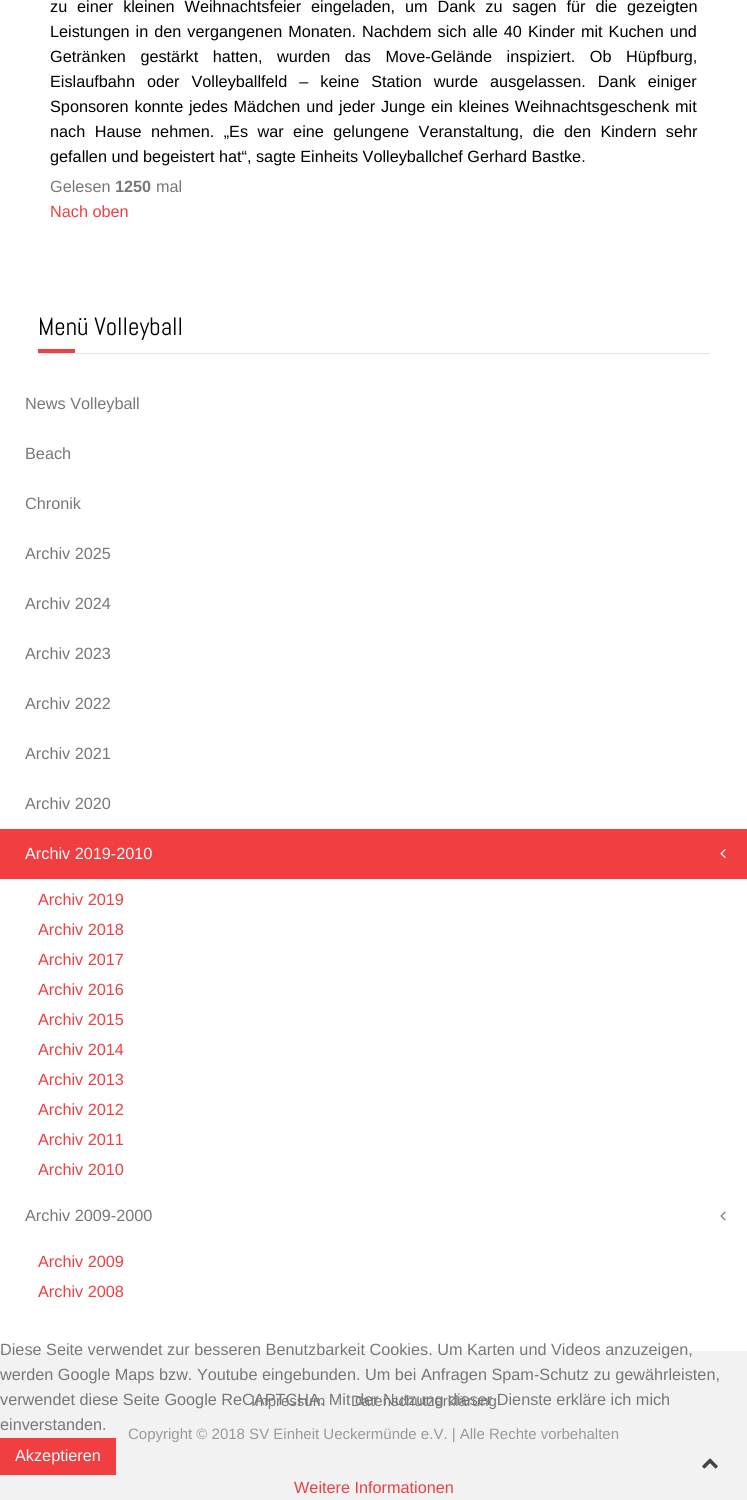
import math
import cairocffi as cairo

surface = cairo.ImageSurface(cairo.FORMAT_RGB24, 747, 1500)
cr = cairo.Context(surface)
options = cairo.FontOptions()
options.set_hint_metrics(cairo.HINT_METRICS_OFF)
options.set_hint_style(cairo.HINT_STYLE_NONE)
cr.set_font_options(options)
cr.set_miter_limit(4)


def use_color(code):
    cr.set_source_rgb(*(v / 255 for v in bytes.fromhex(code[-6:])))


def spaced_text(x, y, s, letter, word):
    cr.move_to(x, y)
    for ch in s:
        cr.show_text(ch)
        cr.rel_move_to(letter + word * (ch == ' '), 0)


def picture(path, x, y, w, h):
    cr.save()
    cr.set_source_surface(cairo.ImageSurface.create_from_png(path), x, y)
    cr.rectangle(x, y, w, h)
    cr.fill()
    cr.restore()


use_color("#f2f2f2")
cr.paint()
use_color("#ffffff")
cr.rectangle(0, 0, 747, 1351)
cr.fill()
cr.select_font_face("Liberation Sans")
cr.set_font_size(16.25)
use_color("#000000")
spaced_text(50, 12, "zu einer kleinen Weihnachtsfeier eingeladen, um Dank zu sagen für die gezeigten", 0, 5.4)
spaced_text(50, 37, "Leistungen in den vergangenen Monaten. Nachdem sich alle 40 Kinder mit Kuchen und", 0, 1.5)
spaced_text(50, 62, "Getränken gestärkt hatten, wurden das Move-Gelände inspiziert. Ob Hüpfburg,", 0, 10)
spaced_text(50, 87, "Eislaufbahn oder Volleyballfeld – keine Station wurde ausgelassen. Dank einiger", 0, 7.5)
spaced_text(50, 112, "Sponsoren konnte jedes Mädchen und jeder Junge ein kleines Weihnachtsgeschenk mit", 0, 1.25)
spaced_text(50, 137, "nach Hause nehmen. „Es war eine gelungene Veranstaltung, die den Kindern sehr", 0, 4.9)
cr.move_to(50, 162)
cr.show_text("gefallen und begeistert hat“, sagte Einheits Volleyballchef Gerhard Bastke.")
use_color("#777777")
cr.move_to(50, 192)
cr.show_text("Gelesen")
cr.select_font_face("Liberation Sans", cairo.FONT_SLANT_NORMAL, cairo.FONT_WEIGHT_BOLD)
cr.move_to(115, 192)
cr.show_text("1250")
cr.select_font_face("Liberation Sans")
cr.move_to(156, 192)
cr.show_text("mal")
use_color("#f13e40")
cr.move_to(50, 217)
cr.show_text("Nach oben")
use_color("#e6e6e6")
cr.rectangle(38, 353, 672, 1)
cr.fill()
cr.select_font_face("Abel")
cr.set_font_size(25)
use_color("#000000")
cr.move_to(38, 335)
cr.show_text("Menü Volleyball")
use_color("#f13e40")
cr.rectangle(38, 349, 37, 4)
cr.fill()
cr.select_font_face("Liberation Sans")
cr.set_font_size(16.25)
use_color("#777777")
cr.move_to(25, 409)
cr.show_text("News Volleyball")
cr.move_to(25, 459)
cr.show_text("Beach")
cr.move_to(25, 509)
cr.show_text("Chronik")
cr.move_to(25, 559)
cr.show_text("Archiv 2025")
cr.move_to(25, 609)
cr.show_text("Archiv 2024")
cr.move_to(25, 659)
cr.show_text("Archiv 2023")
cr.move_to(25, 709)
cr.show_text("Archiv 2022")
cr.move_to(25, 759)
cr.show_text("Archiv 2021")
cr.move_to(25, 809)
cr.show_text("Archiv 2020")
use_color("#f13e40")
cr.rectangle(0, 829, 747, 50)
cr.fill()
use_color("#ffffff")
cr.move_to(25, 859)
cr.show_text("Archiv 2019-2010")
picture("img1.png", 720, 849, 6, 9)
use_color("#f13e40")
cr.move_to(38, 905)
cr.show_text("Archiv 2019")
cr.move_to(38, 935)
cr.show_text("Archiv 2018")
cr.move_to(38, 965)
cr.show_text("Archiv 2017")
cr.move_to(38, 995)
cr.show_text("Archiv 2016")
cr.move_to(38, 1025)
cr.show_text("Archiv 2015")
cr.move_to(38, 1055)
cr.show_text("Archiv 2014")
cr.move_to(38, 1085)
cr.show_text("Archiv 2013")
cr.move_to(38, 1115)
cr.show_text("Archiv 2012")
cr.move_to(38, 1145)
cr.show_text("Archiv 2011")
cr.move_to(38, 1175)
cr.show_text("Archiv 2010")
use_color("#777777")
cr.move_to(25, 1221)
cr.show_text("Archiv 2009-2000")
picture("img2.png", 720, 1211, 6, 10)
use_color("#f13e40")
cr.move_to(38, 1267)
cr.show_text("Archiv 2009")
cr.move_to(38, 1297)
cr.show_text("Archiv 2008")
cr.set_font_size(15)
use_color("#777777")
cr.move_to(251, 1406)
cr.show_text("Impressum")
use_color("#dddddd")
cr.rectangle(338, 1396, 1, 13)
cr.fill()
use_color("#777777")
cr.move_to(351, 1406)
cr.show_text("Datenschutzerklärung")
use_color("#999999")
cr.move_to(128, 1439)
cr.show_text("Copyright © 2018 SV Einheit Ueckermünde e.V. | Alle Rechte vorbehalten")
cr.set_font_size(16.25)
use_color("#777777")
cr.move_to(0, 1355)
cr.show_text("Diese Seite verwendet zur besseren Benutzbarkeit Cookies. Um Karten und Videos anzuzeigen,")
cr.move_to(0, 1380)
cr.show_text("werden Google Maps bzw. Youtube eingebunden. Um bei Anfragen Spam-Schutz zu gewährleisten,")
cr.move_to(0, 1405)
cr.show_text("verwendet diese Seite Google ReCAPTCHA. Mit der Nutzung dieser Dienste erkläre ich mich")
cr.move_to(0, 1430)
cr.show_text("einverstanden.")
use_color("#f13e40")
cr.rectangle(0, 1438, 116, 37)
cr.fill()
use_color("#ffffff")
cr.move_to(15, 1461)
cr.show_text("Akzeptieren")
use_color("#f13e40")
cr.move_to(294, 1493)
cr.show_text("Weitere Informationen")
picture("img3.png", 702, 1458, 16, 11)
surface.write_to_png("result.png")
